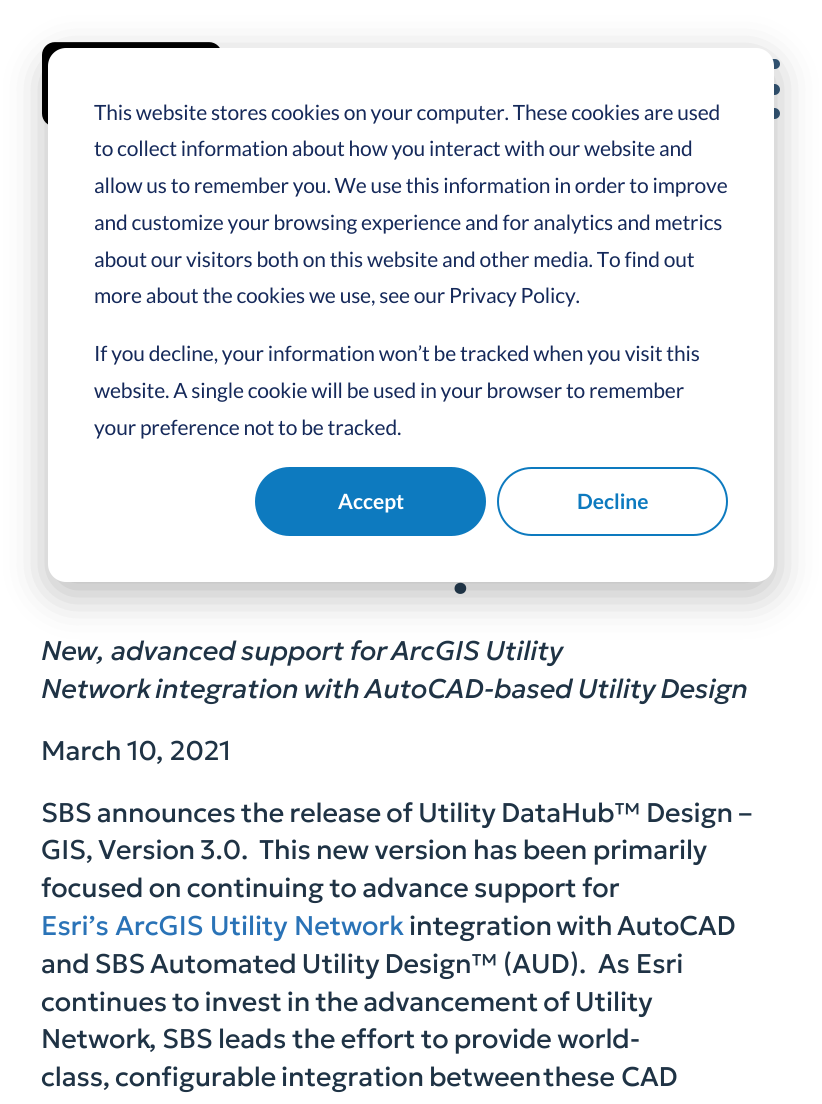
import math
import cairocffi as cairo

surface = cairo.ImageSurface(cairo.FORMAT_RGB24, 822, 1104)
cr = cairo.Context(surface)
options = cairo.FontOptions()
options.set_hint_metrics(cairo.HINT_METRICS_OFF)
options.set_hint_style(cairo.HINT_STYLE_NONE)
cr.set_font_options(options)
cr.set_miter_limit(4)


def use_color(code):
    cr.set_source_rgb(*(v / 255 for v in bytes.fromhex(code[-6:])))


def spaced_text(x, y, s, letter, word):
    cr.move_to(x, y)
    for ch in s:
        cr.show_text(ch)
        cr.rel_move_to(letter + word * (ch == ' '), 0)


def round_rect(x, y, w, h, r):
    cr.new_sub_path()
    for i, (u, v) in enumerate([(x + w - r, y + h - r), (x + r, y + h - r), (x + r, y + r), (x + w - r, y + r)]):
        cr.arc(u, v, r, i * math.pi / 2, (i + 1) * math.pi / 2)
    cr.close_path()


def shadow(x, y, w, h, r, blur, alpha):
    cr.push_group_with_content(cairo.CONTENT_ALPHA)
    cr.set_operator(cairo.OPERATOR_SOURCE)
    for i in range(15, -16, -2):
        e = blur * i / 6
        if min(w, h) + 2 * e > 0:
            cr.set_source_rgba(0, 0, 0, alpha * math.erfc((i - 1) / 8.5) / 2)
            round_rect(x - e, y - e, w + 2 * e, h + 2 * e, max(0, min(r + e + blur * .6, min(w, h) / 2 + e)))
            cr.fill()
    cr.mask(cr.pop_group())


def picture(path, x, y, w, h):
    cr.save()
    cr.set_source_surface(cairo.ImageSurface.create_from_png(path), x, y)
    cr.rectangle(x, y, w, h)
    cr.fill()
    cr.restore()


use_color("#ffffff")
cr.paint()
picture("img1.png", 42, 42, 178, 83)
use_color("#355878")
round_rect(720, 59, 60, 10, 5)
cr.fill()
round_rect(720, 84, 60, 11, 5.5)
cr.fill()
round_rect(720, 108, 60, 11, 5.5)
cr.fill()
use_color("#000000")
shadow(48, 60, 726, 534, 18, 21, 0.28)
use_color("#ffffff")
round_rect(48, 48, 726, 534, 18)
cr.fill()
cr.select_font_face("Lato")
cr.set_font_size(21)
use_color("#15295a")
spaced_text(94, 120, "This website stores cookies on your computer. These cookies are used", -0.15, 0)
spaced_text(94, 156, "to collect information about how you interact with our website and", -0.15, 0)
spaced_text(94, 193, "allow us to remember you. We use this information in order to improve", -0.15, 0)
spaced_text(94, 230, "and customize your browsing experience and for analytics and metrics", -0.15, 0)
spaced_text(94, 267, "about our visitors both on this website and other media. To find out", -0.15, 0)
spaced_text(94, 303, "more about the cookies we use, see our Privacy Policy.", -0.15, 0)
spaced_text(94, 361, "If you decline, your information won’t be tracked when you visit this", -0.15, 0)
spaced_text(94, 398, "website. A single cookie will be used in your browser to remember", -0.15, 0)
spaced_text(94, 435, "your preference not to be tracked.", -0.15, 0)
use_color("#0d7abf")
round_rect(256, 468, 229, 67, 33.5)
cr.fill_preserve()
cr.stroke()
cr.select_font_face("Lato", cairo.FONT_SLANT_NORMAL, cairo.FONT_WEIGHT_BOLD)
use_color("#ffffff")
cr.move_to(338, 509)
cr.show_text("Accept")
round_rect(498, 468, 229, 67, 33.5)
use_color("#0d7abf")
cr.stroke()
cr.move_to(577, 509)
cr.show_text("Decline")
cr.select_font_face("Geologica", cairo.FONT_SLANT_NORMAL, cairo.FONT_WEIGHT_BOLD)
cr.set_font_size(63)
use_color("#1f3345")
spaced_text(451, 593, ".", -0.15, 0)
cr.select_font_face("Geologica", cairo.FONT_SLANT_ITALIC)
cr.set_font_size(27)
spaced_text(41, 660, "Ne", -0.15, 0)
spaced_text(76, 660, "w,", -0.15, 0)
spaced_text(111, 660, "advanced support for", -0.15, -1)
spaced_text(391, 660, "ArcGIS", -0.15, 0)
spaced_text(485, 660, "Utility", -0.15, 0)
spaced_text(41, 698, "Network", -0.15, 0)
spaced_text(155, 698, "integration with AutoCAD-based Utility Design", -0.15, -1.5)
cr.select_font_face("Geologica")
spaced_text(41, 760, "March 10", -0.15, -1)
spaced_text(156, 760, ", 2021", -0.15, 0)
spaced_text(41, 822, "SBS announces the release of Utility DataHub™", -0.15, -1.25)
spaced_text(646, 822, "Design –", -0.15, -1)
spaced_text(41, 859, "GIS, Version", -0.15, -1)
spaced_text(200, 859, "3.0", -0.15, 0)
spaced_text(241, 859, ".  This new version has been primarily", -0.15, -1)
spaced_text(41, 897, "focused on continuing to advance support for", -0.15, -1)
use_color("#2a73b7")
spaced_text(41, 935, "Esri’s ArcGIS Utility Network", -0.15, 0)
use_color("#1f3345")
spaced_text(409, 935, "integration with AutoCAD", -0.15, -2)
spaced_text(41, 973, "and SBS Automated Utility Design™", -0.15, -1.5)
spaced_text(503, 973, "(AUD)", -0.15, 0)
spaced_text(579, 973, ".  As Esri", -0.15, -0.5)
spaced_text(41, 1011, "continues to invest in the advancement of Utility", -0.15, -1.5)
spaced_text(41, 1048, "Network", -0.15, 0)
spaced_text(149, 1048, ",", -0.15, 0)
spaced_text(162, 1048, "SBS lead", -0.15, -1)
spaced_text(273, 1048, "s", -0.15, 0)
spaced_text(292, 1048, "the effort to provide world-", -0.15, -1)
spaced_text(41, 1086, "class, configurable integration between", -0.15, -1.5)
spaced_text(543, 1086, "these CAD", -0.15, 0)
surface.write_to_png("result.png")
